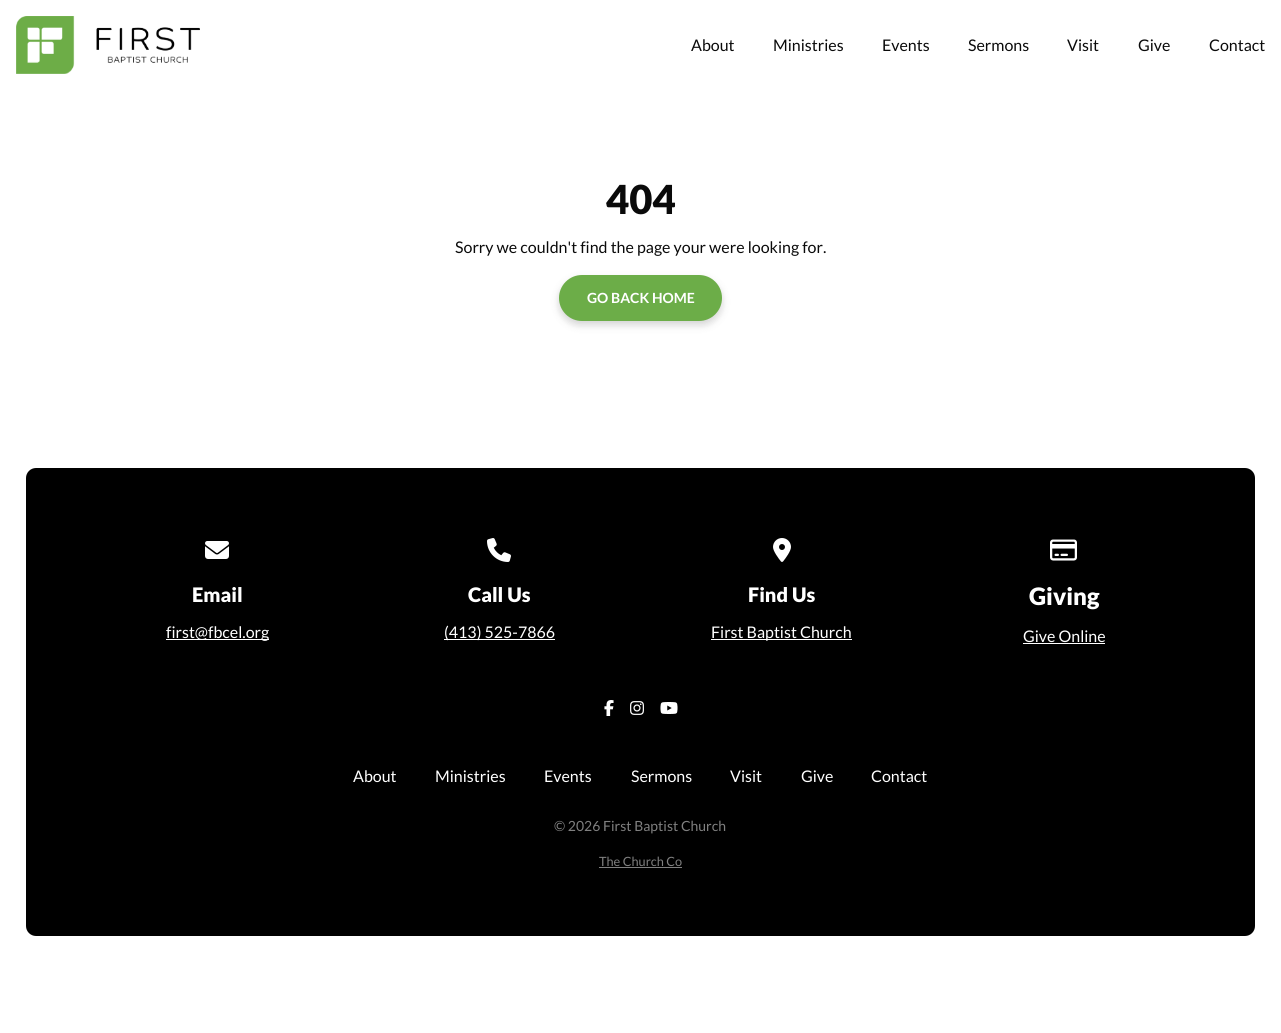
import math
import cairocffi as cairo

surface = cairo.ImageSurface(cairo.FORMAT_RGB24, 1281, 1033)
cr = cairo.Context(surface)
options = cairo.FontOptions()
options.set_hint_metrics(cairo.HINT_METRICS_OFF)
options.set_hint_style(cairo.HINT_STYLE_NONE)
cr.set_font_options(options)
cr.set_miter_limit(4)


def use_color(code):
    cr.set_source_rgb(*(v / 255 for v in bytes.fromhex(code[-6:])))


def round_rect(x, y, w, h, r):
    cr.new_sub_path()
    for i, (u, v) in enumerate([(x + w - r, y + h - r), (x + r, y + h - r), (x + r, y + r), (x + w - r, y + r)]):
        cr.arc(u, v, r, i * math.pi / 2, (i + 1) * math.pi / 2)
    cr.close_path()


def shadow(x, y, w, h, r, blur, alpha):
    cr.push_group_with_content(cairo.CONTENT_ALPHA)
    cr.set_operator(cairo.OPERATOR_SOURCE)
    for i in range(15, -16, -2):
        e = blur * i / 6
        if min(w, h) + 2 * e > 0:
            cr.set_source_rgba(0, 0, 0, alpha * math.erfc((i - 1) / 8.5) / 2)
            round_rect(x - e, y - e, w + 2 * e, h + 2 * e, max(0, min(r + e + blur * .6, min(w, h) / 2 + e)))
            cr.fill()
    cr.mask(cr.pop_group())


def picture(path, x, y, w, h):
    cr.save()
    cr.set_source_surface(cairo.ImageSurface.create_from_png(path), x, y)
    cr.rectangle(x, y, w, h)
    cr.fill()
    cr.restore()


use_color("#ffffff")
cr.paint()
picture("img1.png", 16, 16, 184, 58)
cr.select_font_face("Lato")
cr.set_font_size(16)
use_color("#0a0a0a")
cr.move_to(691, 51)
cr.show_text("About")
cr.move_to(773, 51)
cr.show_text("Ministries")
cr.move_to(882, 51)
cr.show_text("Events")
cr.move_to(968, 51)
cr.show_text("Sermons")
cr.move_to(1067, 51)
cr.show_text("Visit")
cr.move_to(1138, 51)
cr.show_text("Give")
cr.move_to(1209, 51)
cr.show_text("Contact")
cr.select_font_face("Lato Black")
cr.set_font_size(40)
cr.move_to(606, 214)
cr.show_text("404")
cr.select_font_face("Lato")
cr.set_font_size(16)
cr.move_to(455, 253)
cr.show_text("Sorry we couldn't find the page your were looking for.")
use_color("#000000")
shadow(559, 279, 163, 46, 23, 4, 0.17)
use_color("#6cad48")
round_rect(559, 275, 163, 46, 23)
cr.fill()
cr.select_font_face("Lato", cairo.FONT_SLANT_NORMAL, cairo.FONT_WEIGHT_BOLD)
cr.set_font_size(14)
use_color("#ffffff")
cr.move_to(587, 303)
cr.show_text("GO BACK HOME")
use_color("#000000")
cr.new_path()
cr.move_to(36, 468)
cr.line_to(1245, 468)
cr.curve_to(1250.5, 468, 1255, 472.5, 1255, 478)
cr.line_to(1255, 664)
cr.line_to(26, 664)
cr.line_to(26, 478)
cr.curve_to(26, 472.5, 30.5, 468, 36, 468)
cr.close_path()
cr.fill()
picture("img2.png", 205, 541, 24, 18)
cr.select_font_face("Lato Black")
cr.set_font_size(20)
use_color("#ffffff")
cr.move_to(192, 602)
cr.show_text("Email")
cr.rectangle(166, 639, 103, 1)
cr.fill()
cr.select_font_face("Lato")
cr.set_font_size(16)
cr.move_to(166, 638)
cr.show_text("first@fbcel.org")
picture("img3.png", 487, 538, 24, 24)
cr.select_font_face("Lato Black")
cr.set_font_size(20)
cr.move_to(468, 602)
cr.show_text("Call Us")
cr.rectangle(444, 639, 111, 1)
cr.fill()
cr.select_font_face("Lato")
cr.set_font_size(16)
cr.move_to(444, 638)
cr.show_text("(413) 525-7866")
picture("img4.png", 773, 538, 18, 24)
cr.select_font_face("Lato Black")
cr.set_font_size(20)
cr.move_to(748, 602)
cr.show_text("Find Us")
cr.rectangle(711, 639, 141, 1)
cr.fill()
cr.select_font_face("Lato")
cr.set_font_size(16)
cr.move_to(711, 638)
cr.show_text("First Baptist Church")
picture("img5.png", 1050, 539, 27, 22)
cr.select_font_face("Lato Black")
cr.set_font_size(24)
cr.move_to(1029, 605)
cr.show_text("Giving")
cr.select_font_face("Lato")
cr.set_font_size(16)
cr.move_to(1023, 642)
cr.show_text("Give Online")
cr.rectangle(1023, 643, 82, 1)
cr.fill()
use_color("#000000")
cr.new_path()
cr.move_to(26, 664)
cr.line_to(1255, 664)
cr.line_to(1255, 926)
cr.curve_to(1255, 931.5, 1250.5, 936, 1245, 936)
cr.line_to(36, 936)
cr.curve_to(30.5, 936, 26, 931.5, 26, 926)
cr.close_path()
cr.fill()
picture("img6.png", 604, 700, 10, 16)
picture("img7.png", 630, 701, 14, 14)
picture("img8.png", 660, 702, 18, 12)
use_color("#ffffff")
cr.move_to(353, 782)
cr.show_text("About")
cr.move_to(435, 782)
cr.show_text("Ministries")
cr.move_to(544, 782)
cr.show_text("Events")
cr.move_to(631, 782)
cr.show_text("Sermons")
cr.move_to(730, 782)
cr.show_text("Visit")
cr.move_to(801, 782)
cr.show_text("Give")
cr.move_to(871, 782)
cr.show_text("Contact")
cr.set_font_size(14)
use_color("#808080")
cr.move_to(554, 831)
cr.show_text("© 2026 First Baptist Church")
cr.set_font_size(12.75)
cr.move_to(599, 866)
cr.show_text("The Church Co")
cr.rectangle(599, 867, 83, 1)
cr.fill()
surface.write_to_png("result.png")
